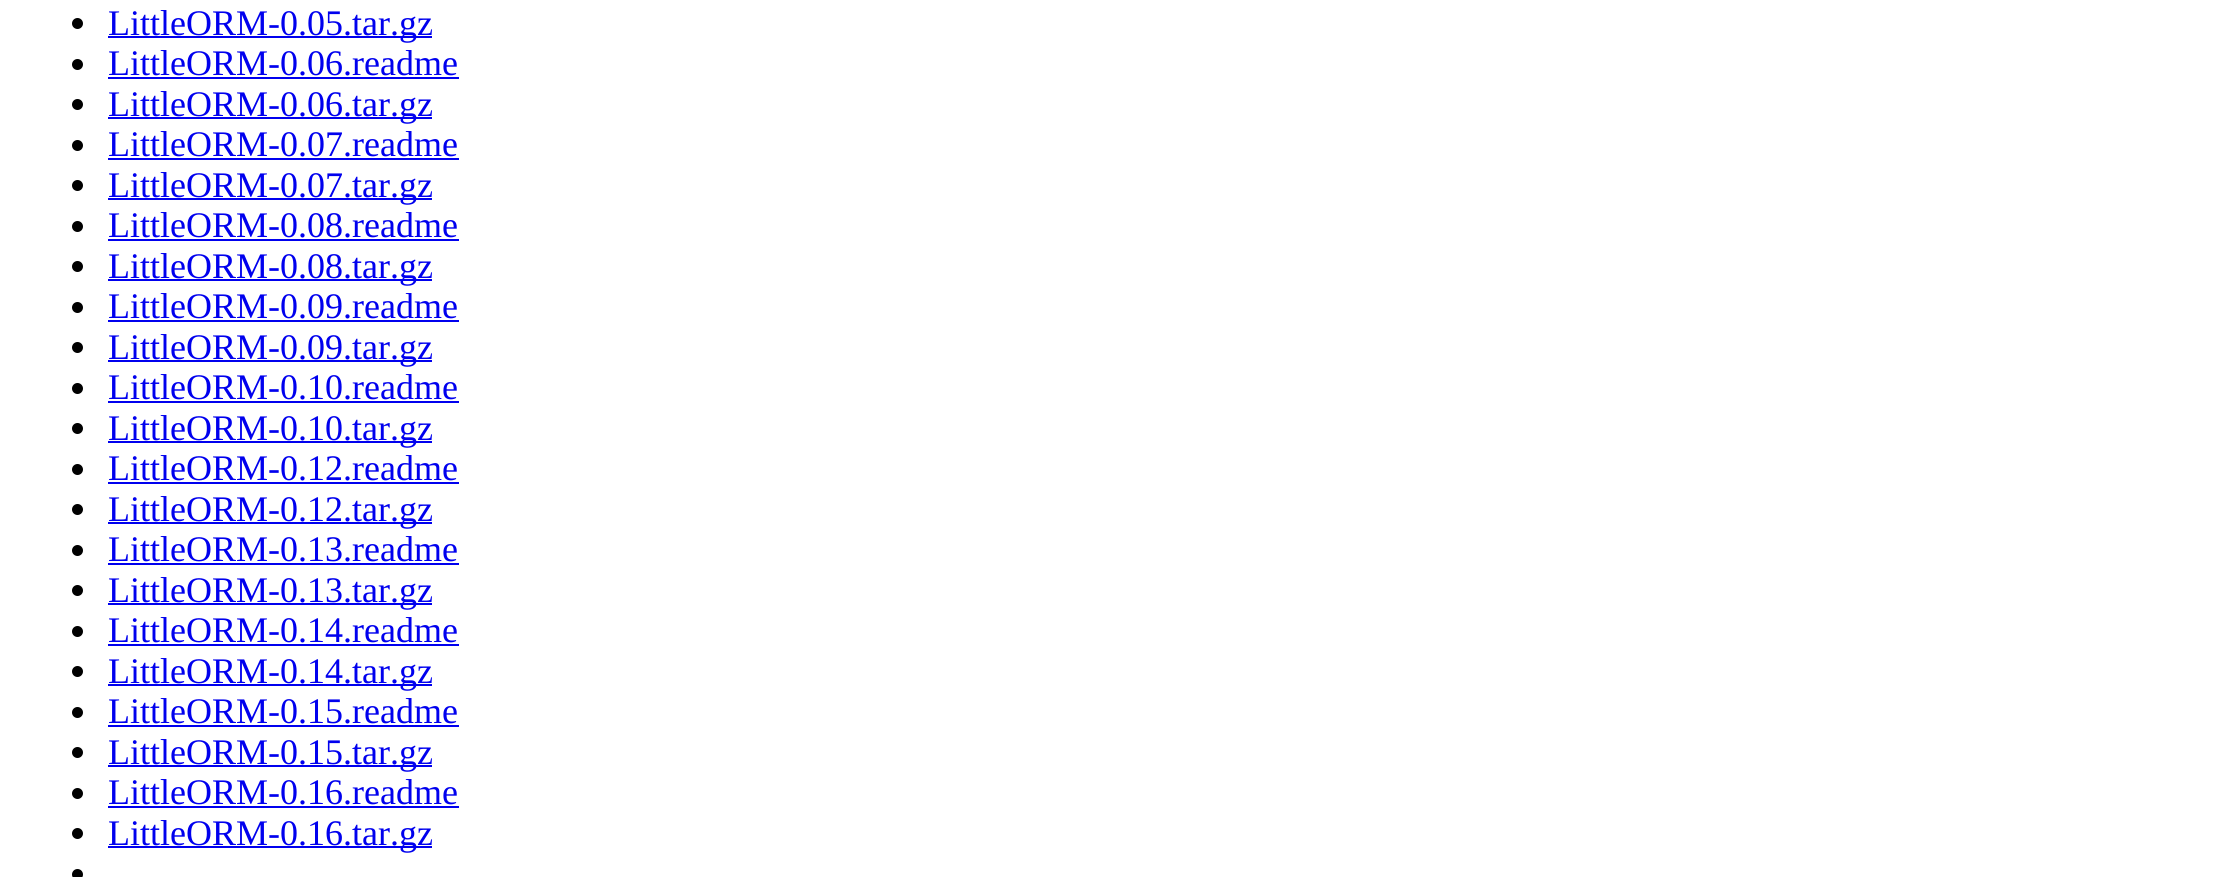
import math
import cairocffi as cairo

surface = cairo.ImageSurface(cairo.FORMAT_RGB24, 2234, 877)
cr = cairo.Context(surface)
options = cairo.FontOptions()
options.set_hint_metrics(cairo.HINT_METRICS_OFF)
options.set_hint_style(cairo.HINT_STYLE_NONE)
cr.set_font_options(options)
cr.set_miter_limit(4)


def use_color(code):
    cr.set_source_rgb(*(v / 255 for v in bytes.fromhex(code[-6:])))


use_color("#ffffff")
cr.paint()
use_color("#000000")
cr.arc(77.5, 23.5, 5.5, 0, 2 * math.pi)
cr.fill()
use_color("#0000ee")
cr.rectangle(108, 36, 324, 2)
cr.fill()
cr.select_font_face("Liberation Serif")
cr.set_font_size(36)
cr.move_to(108, 35)
cr.show_text("LittleORM-0.05.tar.gz")
use_color("#000000")
cr.new_path()
cr.arc(77.5, 64.5, 5.5, 0, 2 * math.pi)
cr.fill()
use_color("#0000ee")
cr.move_to(108, 75)
cr.show_text("LittleORM-0.06.readme")
cr.rectangle(108, 77, 351, 2)
cr.fill()
use_color("#000000")
cr.arc(77.5, 104.5, 5.5, 0, 2 * math.pi)
cr.fill()
use_color("#0000ee")
cr.rectangle(108, 117, 324, 2)
cr.fill()
cr.move_to(108, 116)
cr.show_text("LittleORM-0.06.tar.gz")
use_color("#000000")
cr.new_path()
cr.arc(77.5, 145.5, 5.5, 0, 2 * math.pi)
cr.fill()
use_color("#0000ee")
cr.move_to(108, 156)
cr.show_text("LittleORM-0.07.readme")
cr.rectangle(108, 158, 351, 2)
cr.fill()
use_color("#000000")
cr.arc(77.5, 185.5, 5.5, 0, 2 * math.pi)
cr.fill()
use_color("#0000ee")
cr.rectangle(108, 198, 324, 2)
cr.fill()
cr.move_to(108, 197)
cr.show_text("LittleORM-0.07.tar.gz")
use_color("#000000")
cr.new_path()
cr.arc(77.5, 226.5, 5.5, 0, 2 * math.pi)
cr.fill()
use_color("#0000ee")
cr.move_to(108, 237)
cr.show_text("LittleORM-0.08.readme")
cr.rectangle(108, 239, 351, 2)
cr.fill()
use_color("#000000")
cr.arc(77.5, 266.5, 5.5, 0, 2 * math.pi)
cr.fill()
use_color("#0000ee")
cr.rectangle(108, 279, 324, 2)
cr.fill()
cr.move_to(108, 278)
cr.show_text("LittleORM-0.08.tar.gz")
use_color("#000000")
cr.new_path()
cr.arc(77.5, 307.5, 5.5, 0, 2 * math.pi)
cr.fill()
use_color("#0000ee")
cr.move_to(108, 318)
cr.show_text("LittleORM-0.09.readme")
cr.rectangle(108, 320, 351, 2)
cr.fill()
use_color("#000000")
cr.arc(77.5, 347.5, 5.5, 0, 2 * math.pi)
cr.fill()
use_color("#0000ee")
cr.rectangle(108, 360, 324, 2)
cr.fill()
cr.move_to(108, 359)
cr.show_text("LittleORM-0.09.tar.gz")
use_color("#000000")
cr.new_path()
cr.arc(77.5, 388.5, 5.5, 0, 2 * math.pi)
cr.fill()
use_color("#0000ee")
cr.move_to(108, 399)
cr.show_text("LittleORM-0.10.readme")
cr.rectangle(108, 401, 351, 2)
cr.fill()
use_color("#000000")
cr.arc(77.5, 428.5, 5.5, 0, 2 * math.pi)
cr.fill()
use_color("#0000ee")
cr.rectangle(108, 441, 324, 2)
cr.fill()
cr.move_to(108, 440)
cr.show_text("LittleORM-0.10.tar.gz")
use_color("#000000")
cr.new_path()
cr.arc(77.5, 469.5, 5.5, 0, 2 * math.pi)
cr.fill()
use_color("#0000ee")
cr.move_to(108, 480)
cr.show_text("LittleORM-0.12.readme")
cr.rectangle(108, 482, 351, 2)
cr.fill()
use_color("#000000")
cr.arc(77.5, 509.5, 5.5, 0, 2 * math.pi)
cr.fill()
use_color("#0000ee")
cr.rectangle(108, 522, 324, 2)
cr.fill()
cr.move_to(108, 521)
cr.show_text("LittleORM-0.12.tar.gz")
use_color("#000000")
cr.new_path()
cr.arc(77.5, 550.5, 5.5, 0, 2 * math.pi)
cr.fill()
use_color("#0000ee")
cr.move_to(108, 561)
cr.show_text("LittleORM-0.13.readme")
cr.rectangle(108, 563, 351, 2)
cr.fill()
use_color("#000000")
cr.arc(77.5, 590.5, 5.5, 0, 2 * math.pi)
cr.fill()
use_color("#0000ee")
cr.rectangle(108, 603, 324, 2)
cr.fill()
cr.move_to(108, 602)
cr.show_text("LittleORM-0.13.tar.gz")
use_color("#000000")
cr.new_path()
cr.arc(77.5, 631.5, 5.5, 0, 2 * math.pi)
cr.fill()
use_color("#0000ee")
cr.move_to(108, 642)
cr.show_text("LittleORM-0.14.readme")
cr.rectangle(108, 644, 351, 2)
cr.fill()
use_color("#000000")
cr.arc(77.5, 671.5, 5.5, 0, 2 * math.pi)
cr.fill()
use_color("#0000ee")
cr.rectangle(108, 684, 324, 2)
cr.fill()
cr.move_to(108, 683)
cr.show_text("LittleORM-0.14.tar.gz")
use_color("#000000")
cr.new_path()
cr.arc(77.5, 712.5, 5.5, 0, 2 * math.pi)
cr.fill()
use_color("#0000ee")
cr.move_to(108, 723)
cr.show_text("LittleORM-0.15.readme")
cr.rectangle(108, 725, 351, 2)
cr.fill()
use_color("#000000")
cr.arc(77.5, 752.5, 5.5, 0, 2 * math.pi)
cr.fill()
use_color("#0000ee")
cr.rectangle(108, 765, 324, 2)
cr.fill()
cr.move_to(108, 764)
cr.show_text("LittleORM-0.15.tar.gz")
use_color("#000000")
cr.new_path()
cr.arc(77.5, 793.5, 5.5, 0, 2 * math.pi)
cr.fill()
use_color("#0000ee")
cr.move_to(108, 804)
cr.show_text("LittleORM-0.16.readme")
cr.rectangle(108, 806, 351, 2)
cr.fill()
use_color("#000000")
cr.arc(77.5, 833.5, 5.5, 0, 2 * math.pi)
cr.fill()
use_color("#0000ee")
cr.rectangle(108, 846, 324, 2)
cr.fill()
cr.move_to(108, 845)
cr.show_text("LittleORM-0.16.tar.gz")
use_color("#000000")
cr.new_path()
cr.arc(77.5, 874.5, 5.5, 0, 2 * math.pi)
cr.fill()
surface.write_to_png("result.png")
